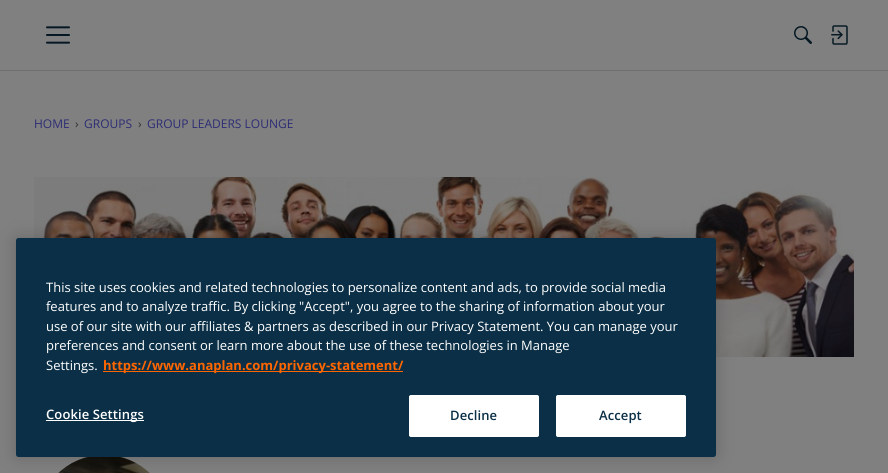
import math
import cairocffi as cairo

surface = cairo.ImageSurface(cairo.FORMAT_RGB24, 888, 473)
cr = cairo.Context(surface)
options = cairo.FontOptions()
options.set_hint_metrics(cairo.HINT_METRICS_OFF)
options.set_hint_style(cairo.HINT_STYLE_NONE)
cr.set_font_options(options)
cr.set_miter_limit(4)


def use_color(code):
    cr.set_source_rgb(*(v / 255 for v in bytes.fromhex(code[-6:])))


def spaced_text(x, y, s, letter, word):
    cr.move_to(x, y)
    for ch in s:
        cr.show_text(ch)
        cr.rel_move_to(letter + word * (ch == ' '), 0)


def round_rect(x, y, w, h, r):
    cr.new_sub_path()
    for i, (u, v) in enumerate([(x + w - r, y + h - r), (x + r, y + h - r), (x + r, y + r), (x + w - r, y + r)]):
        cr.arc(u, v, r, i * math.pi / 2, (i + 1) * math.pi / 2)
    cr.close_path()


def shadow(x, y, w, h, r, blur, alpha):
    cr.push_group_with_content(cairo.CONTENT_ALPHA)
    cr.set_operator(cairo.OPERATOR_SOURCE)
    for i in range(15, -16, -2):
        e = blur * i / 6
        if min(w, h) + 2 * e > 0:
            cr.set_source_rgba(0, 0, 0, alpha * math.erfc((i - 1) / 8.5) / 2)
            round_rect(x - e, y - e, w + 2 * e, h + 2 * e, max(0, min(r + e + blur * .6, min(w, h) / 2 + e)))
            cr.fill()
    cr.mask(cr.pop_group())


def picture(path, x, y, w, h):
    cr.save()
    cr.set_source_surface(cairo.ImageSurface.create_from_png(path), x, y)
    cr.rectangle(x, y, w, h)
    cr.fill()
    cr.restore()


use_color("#808080")
cr.paint()
use_color("#6f6f70")
cr.rectangle(0, 70, 888, 1)
cr.fill()
picture("img1.png", 46, 26, 24, 18)
picture("img2.png", 794, 26, 18, 18)
picture("img3.png", 831, 25, 17, 20)
cr.select_font_face("Open Sans")
cr.set_font_size(12)
use_color("#2c2c75")
cr.move_to(34, 128)
cr.show_text("HOME")
use_color("#2b2d31")
cr.move_to(75, 128)
cr.show_text("›")
use_color("#2c2c75")
cr.move_to(84, 128)
cr.show_text("GROUPS")
use_color("#2b2d31")
cr.move_to(138, 128)
cr.show_text("›")
use_color("#2c2c75")
cr.move_to(147, 128)
cr.show_text("GROUP LEADERS LOUNGE")
picture("img4.png", 34, 177, 820, 180)
picture("img5.png", 58, 457, 92, 16)
use_color("#000000")
shadow(16, 238, 700, 219, 2.5, 9, 0.2)
use_color("#0a2f46")
round_rect(16, 238, 700, 219, 2.5)
cr.fill()
cr.set_font_size(13)
use_color("#ffffff")
cr.move_to(46, 292)
cr.show_text("This site uses cookies and related technologies to personalize content and ads, to provide social media")
cr.move_to(46, 311)
cr.show_text("features and to analyze traffic. By clicking \"Accept\", you agree to the sharing of information about your")
cr.move_to(46, 331)
cr.show_text("use of our site with our affiliates & partners as described in our Privacy Statement. You can manage your")
cr.move_to(46, 350)
cr.show_text("preferences and consent or learn more about the use of these technologies in Manage")
cr.move_to(46, 370)
cr.show_text("Settings.")
use_color("#ff6600")
cr.rectangle(103, 371, 300, 1)
cr.fill()
cr.select_font_face("Open Sans", cairo.FONT_SLANT_NORMAL, cairo.FONT_WEIGHT_BOLD)
cr.move_to(103, 370)
cr.show_text("https://www.anaplan.com/privacy-statement/")
use_color("#ffffff")
cr.rectangle(46, 420, 98, 1)
cr.fill()
cr.select_font_face("Open Sans SemiBold")
spaced_text(46, 419, "Cookie Settings", 0.1, 0)
round_rect(409.5, 395.5, 129, 41, 1.5)
cr.fill_preserve()
cr.set_line_width(1)
cr.stroke()
use_color("#0a2f46")
spaced_text(450, 420, "Decline", 0.1, 0)
use_color("#ffffff")
round_rect(556.5, 395.5, 129, 41, 1.5)
cr.fill_preserve()
cr.stroke()
use_color("#0a2f46")
spaced_text(599, 420, "Accept", 0.1, 0)
surface.write_to_png("result.png")
